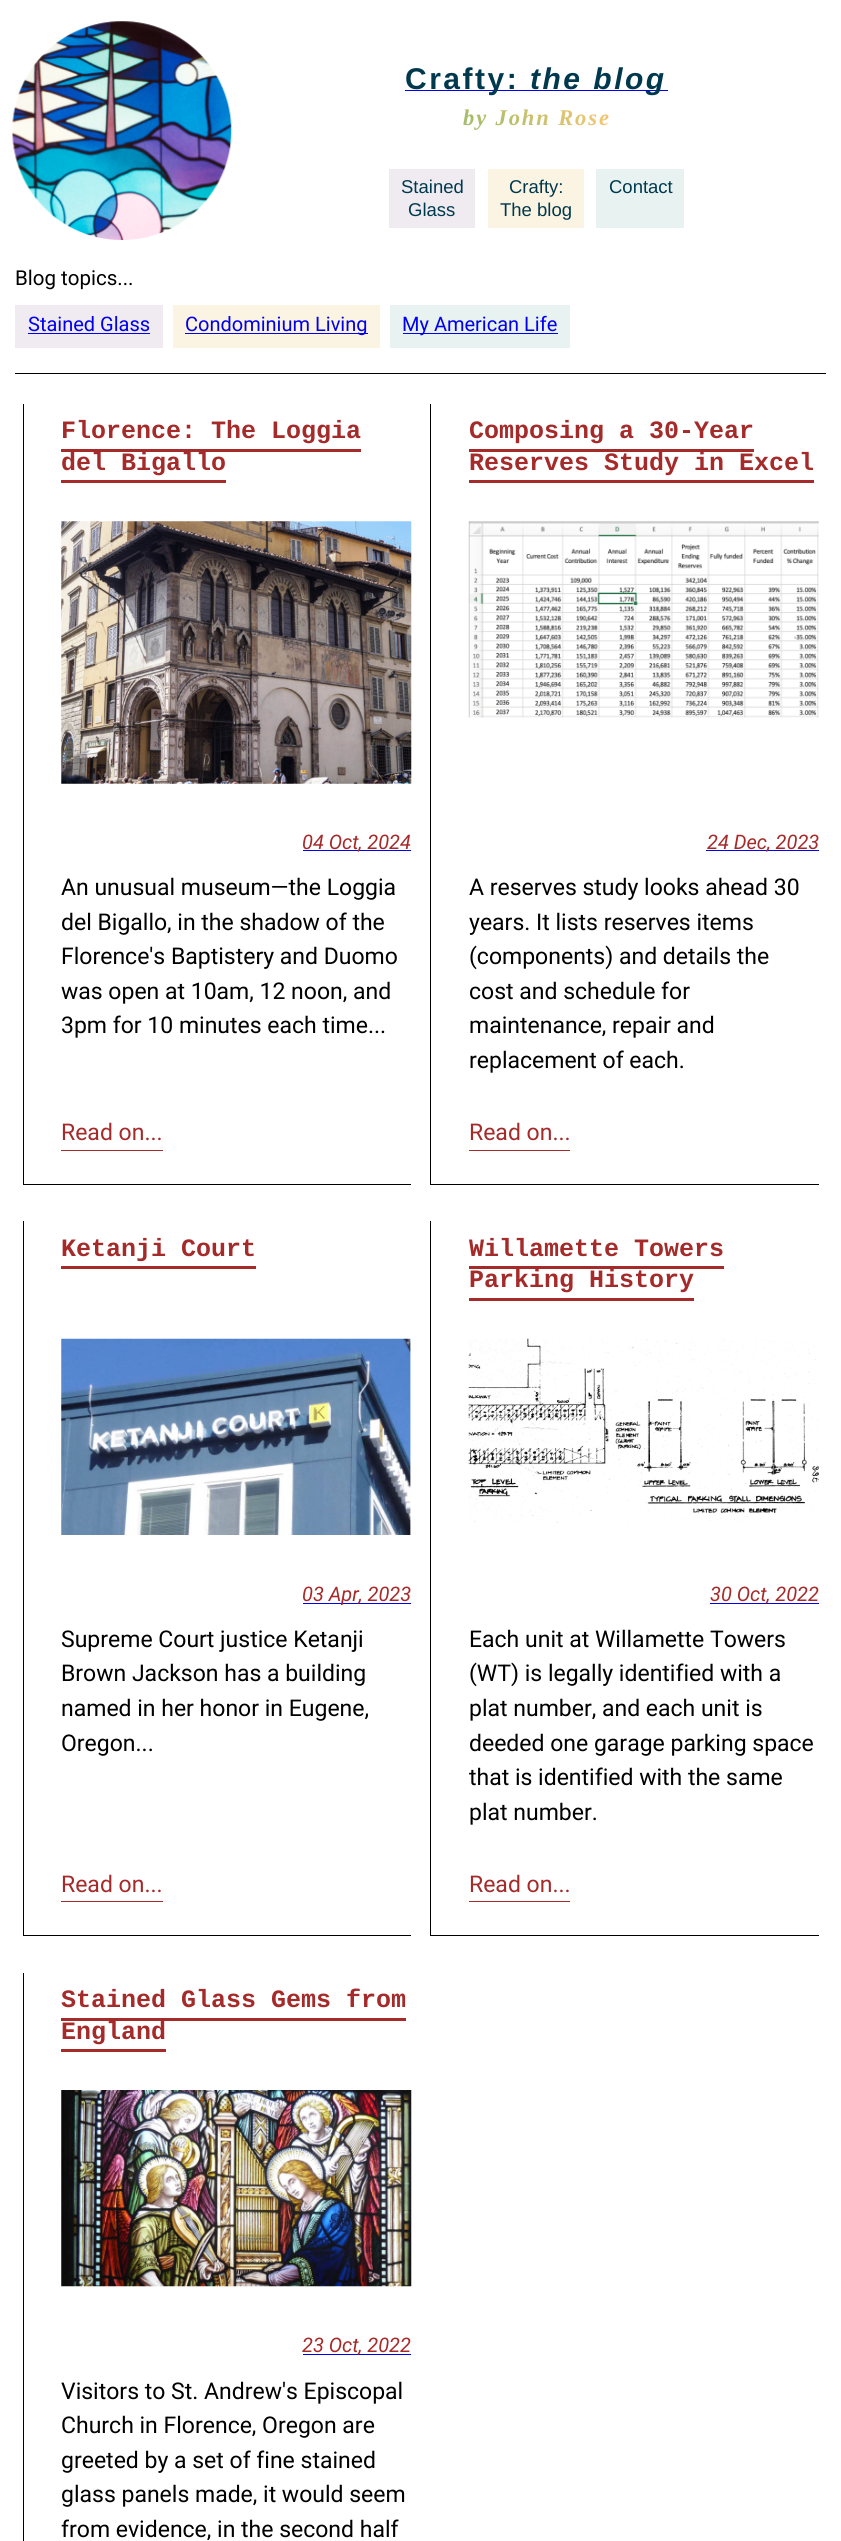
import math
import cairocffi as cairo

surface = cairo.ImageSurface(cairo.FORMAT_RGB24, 841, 2541)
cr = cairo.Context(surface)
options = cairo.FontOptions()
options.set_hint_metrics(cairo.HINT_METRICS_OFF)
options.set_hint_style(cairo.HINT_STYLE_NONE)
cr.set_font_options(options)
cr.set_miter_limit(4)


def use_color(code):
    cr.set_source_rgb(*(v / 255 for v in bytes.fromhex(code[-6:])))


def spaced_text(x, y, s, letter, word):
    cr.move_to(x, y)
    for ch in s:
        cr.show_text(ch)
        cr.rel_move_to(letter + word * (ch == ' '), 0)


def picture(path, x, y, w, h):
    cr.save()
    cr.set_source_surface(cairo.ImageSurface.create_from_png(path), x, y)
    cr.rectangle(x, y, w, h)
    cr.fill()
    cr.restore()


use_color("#ffffff")
cr.paint()
picture("img1.png", 12, 21, 220, 219)
use_color("#0000ee")
cr.rectangle(405, 90, 263, 1)
cr.fill()
cr.select_font_face("Liberation Sans", cairo.FONT_SLANT_NORMAL, cairo.FONT_WEIGHT_BOLD)
cr.set_font_size(30)
use_color("#00394d")
spaced_text(405, 89, "Crafty:", 2.5, 0)
cr.select_font_face("Liberation Sans", cairo.FONT_SLANT_ITALIC, cairo.FONT_WEIGHT_BOLD)
spaced_text(530, 89, "the blog", 2.5, 0)
cr.select_font_face("Liberation Serif", cairo.FONT_SLANT_ITALIC, cairo.FONT_WEIGHT_BOLD)
cr.set_font_size(22.5)
gradient = cairo.LinearGradient(375, 279, 697, -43)
gradient.add_color_stop_rgba(0, 0.698, 0.58, 0.733, 1)
gradient.add_color_stop_rgba(0.2, 0.541, 0.745, 0.718, 1)
gradient.add_color_stop_rgba(0.4, 0.655, 0.741, 0.408, 1)
gradient.add_color_stop_rgba(0.6, 0.941, 0.776, 0.455, 1)
gradient.add_color_stop_rgba(0.8, 0.871, 0.576, 0.373, 1)
gradient.add_color_stop_rgba(1, 0.82, 0.392, 0.392, 1)
cr.set_source(gradient)
spaced_text(463, 125, "by John Rose", 1.9, 0)
use_color("#f0eaf1")
cr.rectangle(389, 169, 86, 59)
cr.fill()
cr.select_font_face("Liberation Sans")
cr.set_font_size(18.5)
use_color("#00394d")
cr.move_to(401, 193)
cr.show_text("Stained")
cr.move_to(408, 216)
cr.show_text("Glass")
use_color("#fcf4e3")
cr.rectangle(488, 169, 96, 59)
cr.fill()
use_color("#00394d")
cr.move_to(509, 193)
cr.show_text("Crafty:")
cr.move_to(500, 216)
cr.show_text("The blog")
use_color("#e7f2f1")
cr.rectangle(596, 169, 88, 59)
cr.fill()
use_color("#00394d")
cr.move_to(609, 193)
cr.show_text("Contact")
use_color("#000000")
cr.rectangle(15, 373, 811, 1)
cr.fill()
cr.select_font_face("Roboto")
cr.set_font_size(20.5)
cr.move_to(15, 285)
cr.show_text("Blog topics...")
use_color("#f0eaf1")
cr.rectangle(15, 305, 148, 43)
cr.fill()
cr.set_font_size(20)
use_color("#0000ee")
cr.move_to(28, 331)
cr.show_text("Stained Glass")
cr.rectangle(28, 333, 122, 1)
cr.fill()
use_color("#fcf4e3")
cr.rectangle(173, 305, 207, 43)
cr.fill()
use_color("#0000ee")
cr.rectangle(185, 333, 183, 1)
cr.fill()
cr.move_to(185, 331)
cr.show_text("Condominium Living")
use_color("#e7f2f1")
cr.rectangle(390, 305, 180, 43)
cr.fill()
use_color("#0000ee")
cr.rectangle(403, 333, 155, 1)
cr.fill()
cr.move_to(402, 331)
cr.show_text("My American Life")
use_color("#000000")
cr.rectangle(23, 1184, 388, 1)
cr.fill()
cr.rectangle(23, 404, 1, 781)
cr.fill()
cr.select_font_face("Liberation Mono", cairo.FONT_SLANT_NORMAL, cairo.FONT_WEIGHT_BOLD)
cr.set_font_size(25)
use_color("#a52a2a")
cr.move_to(61, 438)
cr.show_text("Florence: The Loggia")
cr.rectangle(61, 449, 300, 3)
cr.fill()
cr.move_to(61, 470)
cr.show_text("del Bigallo")
cr.rectangle(61, 480, 165, 3)
cr.fill()
picture("img2.png", 61, 521, 351, 263)
use_color("#0000ee")
cr.rectangle(303, 850, 108, 1)
cr.fill()
cr.select_font_face("Roboto", cairo.FONT_SLANT_ITALIC)
cr.set_font_size(20)
use_color("#a52a2a")
cr.move_to(302, 849)
cr.show_text("04 Oct, 2024")
cr.select_font_face("Roboto")
cr.set_font_size(23)
use_color("#000000")
cr.move_to(61, 895)
cr.show_text("An unusual museum—the Loggia")
cr.move_to(61, 930)
cr.show_text("del Bigallo, in the shadow of the")
cr.move_to(61, 964)
cr.show_text("Florence's Baptistery and Duomo")
cr.move_to(61, 999)
cr.show_text("was open at 10am, 12 noon, and")
cr.move_to(61, 1033)
cr.show_text("3pm for 10 minutes each time...")
use_color("#a52a2a")
cr.move_to(61, 1140)
cr.show_text("Read on...")
cr.rectangle(61, 1150, 102, 1)
cr.fill()
use_color("#000000")
cr.rectangle(430, 1184, 389, 1)
cr.fill()
cr.rectangle(430, 404, 1, 781)
cr.fill()
cr.select_font_face("Liberation Mono", cairo.FONT_SLANT_NORMAL, cairo.FONT_WEIGHT_BOLD)
cr.set_font_size(25)
use_color("#a52a2a")
cr.move_to(469, 438)
cr.show_text("Composing a 30-Year")
cr.rectangle(469, 449, 285, 3)
cr.fill()
cr.move_to(469, 470)
cr.show_text("Reserves Study in Excel")
cr.rectangle(469, 480, 345, 3)
cr.fill()
picture("img3.png", 468, 521, 351, 197)
use_color("#0000ee")
cr.rectangle(706, 850, 113, 1)
cr.fill()
cr.select_font_face("Roboto", cairo.FONT_SLANT_ITALIC)
cr.set_font_size(20)
use_color("#a52a2a")
cr.move_to(707, 849)
cr.show_text("24 Dec, 2023")
cr.select_font_face("Roboto")
cr.set_font_size(23)
use_color("#000000")
cr.move_to(469, 895)
cr.show_text("A reserves study looks ahead 30")
cr.move_to(469, 930)
cr.show_text("years. It lists reserves items")
cr.move_to(469, 964)
cr.show_text("(components) and details the")
cr.move_to(469, 999)
cr.show_text("cost and schedule for")
cr.move_to(469, 1033)
cr.show_text("maintenance, repair and")
cr.move_to(469, 1068)
cr.show_text("replacement of each.")
use_color("#a52a2a")
cr.move_to(469, 1140)
cr.show_text("Read on...")
cr.rectangle(469, 1150, 101, 1)
cr.fill()
use_color("#000000")
cr.rectangle(23, 1935, 388, 1)
cr.fill()
cr.rectangle(23, 1221, 1, 715)
cr.fill()
cr.select_font_face("Liberation Mono", cairo.FONT_SLANT_NORMAL, cairo.FONT_WEIGHT_BOLD)
cr.set_font_size(25)
use_color("#a52a2a")
cr.move_to(61, 1256)
cr.show_text("Ketanji Court")
cr.rectangle(61, 1266, 195, 3)
cr.fill()
picture("img4.png", 61, 1338, 350, 197)
use_color("#0000ee")
cr.rectangle(303, 1603, 108, 1)
cr.fill()
cr.select_font_face("Roboto", cairo.FONT_SLANT_ITALIC)
cr.set_font_size(20)
use_color("#a52a2a")
cr.move_to(302, 1601)
cr.show_text("03 Apr, 2023")
cr.select_font_face("Roboto")
cr.set_font_size(23)
use_color("#000000")
cr.move_to(61, 1647)
cr.show_text("Supreme Court justice Ketanji")
cr.move_to(61, 1681)
cr.show_text("Brown Jackson has a building")
cr.move_to(61, 1716)
cr.show_text("named in her honor in Eugene,")
cr.move_to(61, 1751)
cr.show_text("Oregon...")
use_color("#a52a2a")
cr.move_to(61, 1892)
cr.show_text("Read on...")
cr.rectangle(61, 1901, 102, 1)
cr.fill()
use_color("#000000")
cr.rectangle(430, 1935, 389, 1)
cr.fill()
cr.rectangle(430, 1221, 1, 715)
cr.fill()
cr.select_font_face("Liberation Mono", cairo.FONT_SLANT_NORMAL, cairo.FONT_WEIGHT_BOLD)
cr.set_font_size(25)
use_color("#a52a2a")
cr.move_to(469, 1256)
cr.show_text("Willamette Towers")
cr.rectangle(469, 1266, 255, 3)
cr.fill()
cr.move_to(469, 1287)
cr.show_text("Parking History")
cr.rectangle(469, 1298, 225, 3)
cr.fill()
picture("img5.png", 468, 1338, 351, 185)
use_color("#0000ee")
cr.rectangle(710, 1603, 109, 1)
cr.fill()
cr.select_font_face("Roboto", cairo.FONT_SLANT_ITALIC)
cr.set_font_size(20)
use_color("#a52a2a")
cr.move_to(710, 1601)
cr.show_text("30 Oct, 2022")
cr.select_font_face("Roboto")
cr.set_font_size(23)
use_color("#000000")
cr.move_to(469, 1647)
cr.show_text("Each unit at Willamette Towers")
cr.move_to(469, 1681)
cr.show_text("(WT) is legally identified with a")
cr.move_to(469, 1716)
cr.show_text("plat number, and each unit is")
cr.move_to(469, 1751)
cr.show_text("deeded one garage parking space")
cr.move_to(469, 1785)
cr.show_text("that is identified with the same")
cr.move_to(469, 1820)
cr.show_text("plat number.")
use_color("#a52a2a")
cr.move_to(469, 1892)
cr.show_text("Read on...")
cr.rectangle(469, 1901, 101, 1)
cr.fill()
use_color("#000000")
cr.rectangle(23, 1973, 1, 568)
cr.fill()
cr.select_font_face("Liberation Mono", cairo.FONT_SLANT_NORMAL, cairo.FONT_WEIGHT_BOLD)
cr.set_font_size(25)
use_color("#a52a2a")
cr.move_to(61, 2007)
cr.show_text("Stained Glass Gems from")
cr.rectangle(61, 2018, 345, 3)
cr.fill()
cr.move_to(61, 2039)
cr.show_text("England")
cr.rectangle(61, 2049, 105, 3)
cr.fill()
picture("img6.png", 61, 2090, 351, 197)
use_color("#0000ee")
cr.rectangle(303, 2354, 108, 1)
cr.fill()
cr.select_font_face("Roboto", cairo.FONT_SLANT_ITALIC)
cr.set_font_size(20)
use_color("#a52a2a")
cr.move_to(302, 2352)
cr.show_text("23 Oct, 2022")
cr.select_font_face("Roboto")
cr.set_font_size(23)
use_color("#000000")
cr.move_to(61, 2399)
cr.show_text("Visitors to St. Andrew's Episcopal")
cr.move_to(61, 2433)
cr.show_text("Church in Florence, Oregon are")
cr.move_to(61, 2468)
cr.show_text("greeted by a set of fine stained")
cr.move_to(61, 2502)
cr.show_text("glass panels made, it would seem")
cr.move_to(61, 2537)
cr.show_text("from evidence, in the second half")
surface.write_to_png("result.png")
